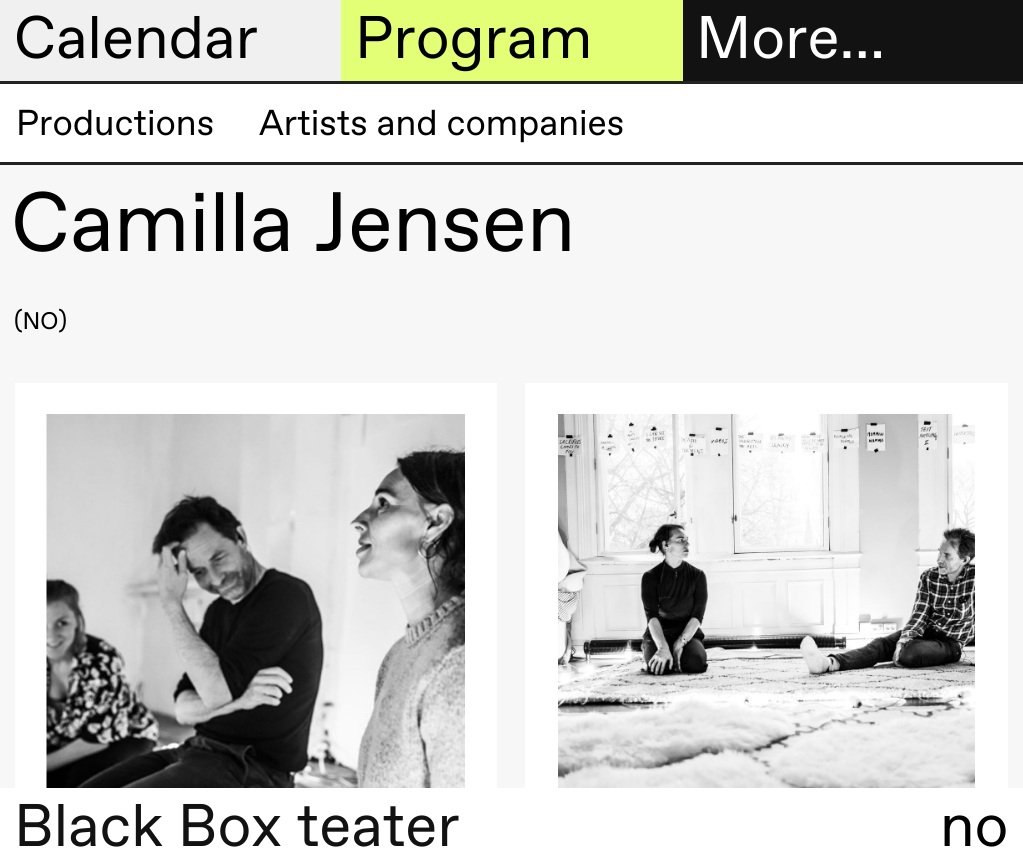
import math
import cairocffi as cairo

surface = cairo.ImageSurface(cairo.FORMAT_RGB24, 1023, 862)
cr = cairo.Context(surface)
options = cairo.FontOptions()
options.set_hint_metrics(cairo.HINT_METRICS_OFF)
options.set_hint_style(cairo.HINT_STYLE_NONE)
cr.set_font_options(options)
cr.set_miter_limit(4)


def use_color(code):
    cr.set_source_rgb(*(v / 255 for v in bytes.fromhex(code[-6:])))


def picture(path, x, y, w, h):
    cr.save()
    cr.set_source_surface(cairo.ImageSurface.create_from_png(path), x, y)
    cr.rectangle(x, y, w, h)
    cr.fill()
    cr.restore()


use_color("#f7f7f7")
cr.paint()
use_color("#121212")
cr.rectangle(683, 0, 340, 81)
cr.fill()
use_color("#f0f0f0")
cr.rectangle(0, 0, 341, 81)
cr.fill()
cr.select_font_face("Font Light")
cr.set_font_size(60)
use_color("#000000")
cr.move_to(14, 58)
cr.show_text("Calendar")
use_color("#e3ff75")
cr.rectangle(341, 0, 342, 81)
cr.fill()
use_color("#000000")
cr.move_to(355, 58)
cr.show_text("Program")
use_color("#ffffff")
cr.move_to(696, 58)
cr.show_text("More…")
cr.rectangle(0, 84, 1023, 78)
cr.fill()
use_color("#222222")
cr.rectangle(0, 81, 1023, 3)
cr.fill()
cr.rectangle(0, 162, 1023, 3)
cr.fill()
cr.set_font_size(36)
use_color("#000000")
cr.move_to(16, 135)
cr.show_text("Productions")
cr.move_to(259, 135)
cr.show_text("Artists and companies")
cr.set_font_size(84)
cr.move_to(11, 251)
cr.show_text("Camilla Jensen")
cr.set_font_size(24)
cr.move_to(14, 329)
cr.show_text("(NO)")
use_color("#ffffff")
cr.rectangle(15, 383, 482, 405)
cr.fill()
picture("img1.png", 46, 414, 419, 374)
cr.rectangle(525, 383, 483, 405)
cr.fill()
picture("img2.png", 558, 414, 417, 374)
cr.rectangle(0, 788, 1023, 74)
cr.fill()
cr.set_font_size(60)
use_color("#121212")
cr.move_to(14, 846)
cr.show_text("Black Box teater")
use_color("#000000")
cr.move_to(940, 846)
cr.show_text("no")
surface.write_to_png("result.png")
